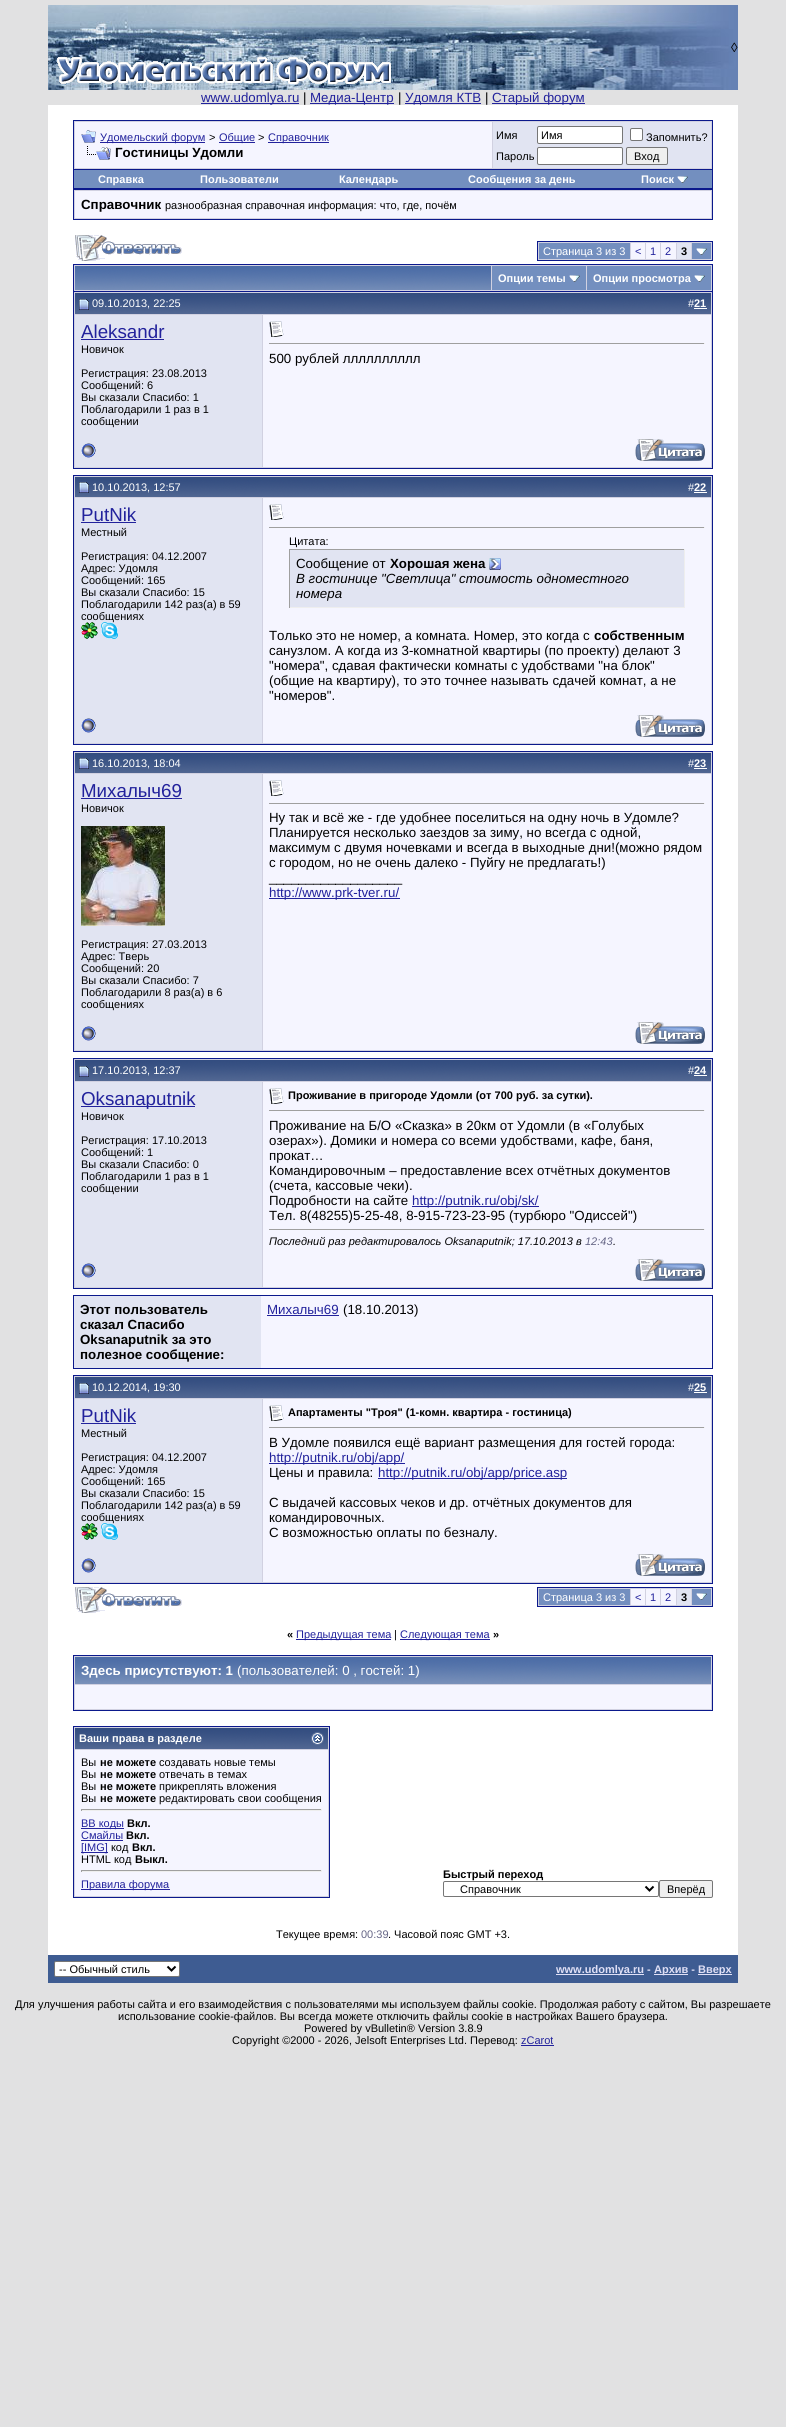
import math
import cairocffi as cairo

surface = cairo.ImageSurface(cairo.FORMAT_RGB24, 786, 2427)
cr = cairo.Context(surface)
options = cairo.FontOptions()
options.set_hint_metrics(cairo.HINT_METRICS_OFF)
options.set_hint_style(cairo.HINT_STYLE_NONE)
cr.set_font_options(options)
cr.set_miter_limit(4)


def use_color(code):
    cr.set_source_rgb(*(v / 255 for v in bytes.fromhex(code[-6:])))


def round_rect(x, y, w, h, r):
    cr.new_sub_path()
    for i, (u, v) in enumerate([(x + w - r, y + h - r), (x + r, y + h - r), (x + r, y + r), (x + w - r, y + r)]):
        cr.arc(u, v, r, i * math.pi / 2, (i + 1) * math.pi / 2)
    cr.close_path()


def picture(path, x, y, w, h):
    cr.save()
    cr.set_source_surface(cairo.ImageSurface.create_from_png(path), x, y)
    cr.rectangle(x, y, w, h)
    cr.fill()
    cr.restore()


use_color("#e1e1e2")
cr.paint()
picture("img1.png", 48, 5, 360, 85)
picture("img2.png", 57, 57, 334, 27)
picture("img3.png", 408, 5, 330, 85)
cr.select_font_face("Liberation Sans")
cr.set_font_size(13.3)
use_color("#000000")
cr.move_to(731, 52)
cr.show_text("◊")
use_color("#22229c")
cr.rectangle(201, 103, 98, 1)
cr.fill()
cr.move_to(201, 102)
cr.show_text("www.udomlya.ru")
use_color("#000000")
cr.move_to(303, 102)
cr.show_text("|")
use_color("#22229c")
cr.rectangle(310, 103, 84, 1)
cr.fill()
cr.move_to(310, 102)
cr.show_text("Медиа-Центр")
use_color("#000000")
cr.move_to(398, 102)
cr.show_text("|")
use_color("#22229c")
cr.rectangle(405, 103, 76, 1)
cr.fill()
cr.move_to(405, 102)
cr.show_text("Удомля КТВ")
use_color("#000000")
cr.move_to(485, 102)
cr.show_text("|")
use_color("#22229c")
cr.rectangle(492, 103, 93, 1)
cr.fill()
cr.move_to(492, 102)
cr.show_text("Старый форум")
use_color("#ffffff")
cr.rectangle(48, 105, 690, 1850)
cr.fill()
use_color("#d1d1e1")
cr.rectangle(73.5, 120.5, 639, 49)
cr.fill_preserve()
use_color("#0b198c")
cr.set_line_width(1)
cr.stroke()
use_color("#f5f5ff")
cr.rectangle(75, 122, 417, 46)
cr.fill()
picture("img4.png", 81, 130, 15, 13)
use_color("#22229c")
cr.rectangle(100, 142, 105, 1)
cr.fill()
cr.set_font_size(11)
cr.move_to(100, 141)
cr.show_text("Удомельский форум")
use_color("#000000")
cr.move_to(209, 141)
cr.show_text(">")
use_color("#22229c")
cr.rectangle(219, 142, 36, 1)
cr.fill()
cr.move_to(219, 141)
cr.show_text("Общие")
use_color("#000000")
cr.move_to(258, 141)
cr.show_text(">")
use_color("#22229c")
cr.rectangle(268, 142, 61, 1)
cr.fill()
cr.move_to(268, 141)
cr.show_text("Справочник")
picture("img5.png", 87, 146, 24, 14)
cr.select_font_face("Liberation Sans", cairo.FONT_SLANT_NORMAL, cairo.FONT_WEIGHT_BOLD)
cr.set_font_size(13.3)
use_color("#000000")
cr.move_to(115, 157)
cr.show_text("Гостиницы Удомли")
use_color("#e1e4f2")
cr.rectangle(493, 122, 218, 46)
cr.fill()
cr.select_font_face("Liberation Sans")
cr.set_font_size(11)
use_color("#000000")
cr.move_to(496, 139)
cr.show_text("Имя")
use_color("#ffffff")
round_rect(537.5, 126.5, 85, 17, 1.5)
cr.fill_preserve()
use_color("#767676")
cr.stroke()
use_color("#000000")
cr.move_to(541, 139)
cr.show_text("Имя")
use_color("#ffffff")
round_rect(630.5, 128.5, 12, 12, 1.5)
cr.fill_preserve()
use_color("#767676")
cr.stroke()
use_color("#000000")
cr.move_to(646, 141)
cr.show_text("Запомнить?")
cr.move_to(496, 160)
cr.show_text("Пароль")
use_color("#ffffff")
round_rect(537.5, 147.5, 85, 17, 1.5)
cr.fill_preserve()
use_color("#767676")
cr.stroke()
use_color("#efefef")
round_rect(626.5, 147.5, 41, 17, 1.5)
cr.fill_preserve()
use_color("#767676")
cr.stroke()
use_color("#000000")
cr.move_to(634, 160)
cr.show_text("Вход")
use_color("#0b198c")
cr.rectangle(712, 170, 1, 19)
cr.fill()
cr.rectangle(73, 188, 640, 1)
cr.fill()
cr.rectangle(73, 170, 1, 19)
cr.fill()
use_color("#738fbf")
cr.rectangle(74, 170, 638, 18)
cr.fill()
cr.select_font_face("Liberation Sans", cairo.FONT_SLANT_NORMAL, cairo.FONT_WEIGHT_BOLD)
use_color("#ffffff")
cr.move_to(98, 183)
cr.show_text("Справка")
cr.move_to(200, 183)
cr.show_text("Пользователи")
cr.move_to(339, 183)
cr.show_text("Календарь")
cr.move_to(468, 183)
cr.show_text("Сообщения за день")
cr.move_to(641, 183)
cr.show_text("Поиск")
picture("img6.png", 677, 176, 11, 7)
use_color("#d1d1e1")
cr.rectangle(73.5, 189.5, 639, 30)
cr.fill_preserve()
use_color("#0b198c")
cr.stroke()
use_color("#f5f5ff")
cr.rectangle(75, 191, 636, 27)
cr.fill()
cr.set_font_size(13.3)
use_color("#000000")
cr.move_to(81, 209)
cr.show_text("Справочник")
cr.select_font_face("Liberation Sans")
cr.set_font_size(11)
cr.move_to(165, 209)
cr.show_text("разнообразная справочная информация: что, где, почём")
picture("img7.png", 75, 235, 107, 26)
use_color("#d1d1e1")
cr.rectangle(537.5, 241.5, 175, 19)
cr.fill_preserve()
use_color("#0b198c")
cr.stroke()
use_color("#738fbf")
cr.rectangle(539, 243, 91, 16)
cr.fill()
use_color("#ffffff")
cr.move_to(543, 255)
cr.show_text("Страница 3 из 3")
use_color("#f5f5ff")
cr.rectangle(631, 243, 14, 16)
cr.fill()
use_color("#22229c")
cr.move_to(635, 255)
cr.show_text("<")
use_color("#f5f5ff")
cr.rectangle(646, 243, 14, 16)
cr.fill()
use_color("#22229c")
cr.move_to(650, 255)
cr.show_text("1")
use_color("#f5f5ff")
cr.rectangle(661, 243, 15, 16)
cr.fill()
use_color("#22229c")
cr.move_to(665, 255)
cr.show_text("2")
use_color("#e1e4f2")
cr.rectangle(677, 243, 14, 16)
cr.fill()
cr.select_font_face("Liberation Sans", cairo.FONT_SLANT_NORMAL, cairo.FONT_WEIGHT_BOLD)
use_color("#000000")
cr.move_to(681, 255)
cr.show_text("3")
use_color("#738fbf")
cr.rectangle(692, 243, 19, 16)
cr.fill()
picture("img6.png", 696, 248, 11, 7)
use_color("#d1d1e1")
cr.rectangle(74, 265, 638, 26)
cr.fill()
use_color("#0b198c")
cr.rectangle(73, 264, 640, 1)
cr.fill()
cr.rectangle(712, 264, 1, 27)
cr.fill()
cr.rectangle(73, 264, 1, 27)
cr.fill()
picture("img8.png", 75, 266, 416, 24)
use_color("#738fbf")
cr.rectangle(492, 266, 94, 24)
cr.fill()
use_color("#ffffff")
cr.move_to(498, 282)
cr.show_text("Опции темы")
picture("img6.png", 569, 275, 11, 7)
use_color("#738fbf")
cr.rectangle(587, 266, 124, 24)
cr.fill()
use_color("#ffffff")
cr.move_to(593, 282)
cr.show_text("Опции просмотра")
picture("img6.png", 694, 275, 11, 7)
cr.rectangle(73.5, 291.5, 639, 177)
use_color("#0b198c")
cr.stroke()
picture("img9.png", 75, 293, 188, 21)
use_color("#d1d1e1")
cr.rectangle(74, 292, 638, 1)
cr.fill()
cr.rectangle(74, 314, 189, 1)
cr.fill()
cr.rectangle(74, 292, 1, 141)
cr.fill()
picture("img10.png", 79, 299, 10, 11)
cr.select_font_face("Liberation Sans")
use_color("#ffffff")
cr.move_to(92, 307)
cr.show_text("09.10.2013, 22:25")
picture("img11.png", 263, 293, 448, 21)
use_color("#d1d1e1")
cr.rectangle(711, 292, 1, 176)
cr.fill()
cr.rectangle(263, 314, 449, 1)
cr.fill()
use_color("#ffffff")
cr.move_to(688, 307)
cr.show_text("#")
cr.select_font_face("Liberation Sans", cairo.FONT_SLANT_NORMAL, cairo.FONT_WEIGHT_BOLD)
cr.move_to(694, 307)
cr.show_text("21")
cr.rectangle(694, 308, 13, 1)
cr.fill()
use_color("#e1e4f2")
cr.rectangle(75, 315, 187, 152)
cr.fill()
use_color("#d1d1e1")
cr.rectangle(262, 315, 1, 153)
cr.fill()
cr.select_font_face("Liberation Sans")
cr.set_font_size(18.75)
use_color("#22229c")
cr.move_to(81, 338)
cr.show_text("Aleksandr")
cr.rectangle(81, 339, 83, 1)
cr.fill()
cr.set_font_size(11)
use_color("#000000")
cr.move_to(81, 353)
cr.show_text("Новичок")
cr.move_to(81, 377)
cr.show_text("Регистрация: 23.08.2013")
cr.move_to(81, 389)
cr.show_text("Сообщений: 6")
cr.move_to(81, 401)
cr.show_text("Вы сказали Спасибо: 1")
cr.move_to(81, 413)
cr.show_text("Поблагодарили 1 раз в 1")
cr.move_to(81, 425)
cr.show_text("сообщении")
use_color("#f5f5ff")
cr.rectangle(263, 315, 448, 152)
cr.fill()
picture("img12.png", 269, 321, 15, 16)
use_color("#9f9f9f")
cr.rectangle(269, 343, 436, 1)
cr.fill()
use_color("#eeeeee")
cr.rectangle(704, 343, 1, 1)
cr.fill()
cr.set_font_size(13.3)
use_color("#000000")
cr.move_to(269, 363)
cr.show_text("500 рублей лллллллллл")
use_color("#d1d1e1")
cr.rectangle(74, 467, 638, 1)
cr.fill()
cr.rectangle(74, 433, 1, 35)
cr.fill()
picture("img13.png", 81, 443, 15, 15)
picture("img14.png", 635, 439, 70, 22)
cr.rectangle(73.5, 475.5, 639, 269)
use_color("#0b198c")
cr.stroke()
picture("img15.png", 75, 477, 188, 20)
use_color("#d1d1e1")
cr.rectangle(74, 476, 638, 1)
cr.fill()
cr.rectangle(74, 497, 189, 1)
cr.fill()
cr.rectangle(74, 476, 1, 233)
cr.fill()
picture("img16.png", 79, 482, 10, 11)
cr.set_font_size(11)
use_color("#ffffff")
cr.move_to(92, 491)
cr.show_text("10.10.2013, 12:57")
picture("img17.png", 263, 477, 448, 20)
use_color("#d1d1e1")
cr.rectangle(711, 476, 1, 268)
cr.fill()
cr.rectangle(263, 497, 449, 1)
cr.fill()
use_color("#ffffff")
cr.move_to(688, 491)
cr.show_text("#")
cr.select_font_face("Liberation Sans", cairo.FONT_SLANT_NORMAL, cairo.FONT_WEIGHT_BOLD)
cr.move_to(694, 491)
cr.show_text("22")
cr.rectangle(694, 492, 13, 1)
cr.fill()
use_color("#e1e4f2")
cr.rectangle(75, 498, 187, 245)
cr.fill()
use_color("#d1d1e1")
cr.rectangle(262, 498, 1, 246)
cr.fill()
cr.select_font_face("Liberation Sans")
cr.set_font_size(18.75)
use_color("#22229c")
cr.move_to(81, 521)
cr.show_text("PutNik")
cr.rectangle(81, 522, 55, 1)
cr.fill()
cr.set_font_size(11)
use_color("#000000")
cr.move_to(81, 536)
cr.show_text("Местный")
cr.move_to(81, 560)
cr.show_text("Регистрация: 04.12.2007")
cr.move_to(81, 572)
cr.show_text("Адрес: Удомля")
cr.move_to(81, 584)
cr.show_text("Сообщений: 165")
cr.move_to(81, 596)
cr.show_text("Вы сказали Спасибо: 15")
cr.move_to(81, 608)
cr.show_text("Поблагодарили 142 раз(а) в 59")
cr.move_to(81, 620)
cr.show_text("сообщениях")
picture("img18.png", 81, 622, 17, 17)
picture("img19.png", 101, 622, 17, 17)
use_color("#f5f5ff")
cr.rectangle(263, 498, 448, 245)
cr.fill()
picture("img12.png", 269, 504, 15, 16)
use_color("#9f9f9f")
cr.rectangle(269, 527, 436, 1)
cr.fill()
use_color("#eeeeee")
cr.rectangle(704, 527, 1, 1)
cr.fill()
use_color("#000000")
cr.move_to(289, 545)
cr.show_text("Цитата:")
use_color("#e1e4f2")
cr.rectangle(290, 550, 394, 57)
cr.fill()
use_color("#9f9f9f")
cr.rectangle(289, 549, 396, 1)
cr.fill()
use_color("#eeeeee")
cr.rectangle(684, 549, 1, 59)
cr.fill()
cr.rectangle(289, 607, 396, 1)
cr.fill()
use_color("#9f9f9f")
cr.rectangle(289, 549, 1, 59)
cr.fill()
cr.set_font_size(13.3)
use_color("#000000")
cr.move_to(296, 568)
cr.show_text("Сообщение от")
cr.select_font_face("Liberation Sans", cairo.FONT_SLANT_NORMAL, cairo.FONT_WEIGHT_BOLD)
cr.move_to(390, 568)
cr.show_text("Хорошая жена")
picture("img20.png", 489, 558, 12, 12)
cr.select_font_face("Liberation Sans", cairo.FONT_SLANT_ITALIC)
cr.move_to(296, 583)
cr.show_text("В гостинице \"Светлица\" стоимость одноместного")
cr.move_to(296, 598)
cr.show_text("номера")
cr.select_font_face("Liberation Sans")
cr.move_to(269, 640)
cr.show_text("Только это не номер, а комната. Номер, это когда с")
cr.select_font_face("Liberation Sans", cairo.FONT_SLANT_NORMAL, cairo.FONT_WEIGHT_BOLD)
cr.move_to(594, 640)
cr.show_text("собственным")
cr.select_font_face("Liberation Sans")
cr.move_to(269, 655)
cr.show_text("санузлом. А когда из 3-комнатной квартиры (по проекту) делают 3")
cr.move_to(269, 670)
cr.show_text("\"номера\", сдавая фактически комнаты с удобствами \"на блок\"")
cr.move_to(269, 685)
cr.show_text("(общие на квартиру), то это точнее называть сдачей комнат, а не")
cr.move_to(269, 700)
cr.show_text("\"номеров\".")
use_color("#d1d1e1")
cr.rectangle(74, 743, 638, 1)
cr.fill()
cr.rectangle(74, 709, 1, 35)
cr.fill()
picture("img13.png", 81, 718, 15, 15)
picture("img14.png", 635, 715, 70, 22)
cr.rectangle(73.5, 751.5, 639, 300)
use_color("#0b198c")
cr.stroke()
picture("img15.png", 75, 753, 188, 20)
use_color("#d1d1e1")
cr.rectangle(74, 752, 638, 1)
cr.fill()
cr.rectangle(74, 773, 189, 1)
cr.fill()
cr.rectangle(74, 752, 1, 264)
cr.fill()
picture("img16.png", 79, 758, 10, 11)
cr.set_font_size(11)
use_color("#ffffff")
cr.move_to(92, 767)
cr.show_text("16.10.2013, 18:04")
picture("img17.png", 263, 753, 448, 20)
use_color("#d1d1e1")
cr.rectangle(711, 752, 1, 299)
cr.fill()
cr.rectangle(263, 773, 449, 1)
cr.fill()
use_color("#ffffff")
cr.move_to(688, 767)
cr.show_text("#")
cr.select_font_face("Liberation Sans", cairo.FONT_SLANT_NORMAL, cairo.FONT_WEIGHT_BOLD)
cr.move_to(694, 767)
cr.show_text("23")
cr.rectangle(694, 768, 13, 1)
cr.fill()
use_color("#e1e4f2")
cr.rectangle(75, 774, 187, 276)
cr.fill()
use_color("#d1d1e1")
cr.rectangle(262, 774, 1, 277)
cr.fill()
cr.select_font_face("Liberation Sans")
cr.set_font_size(18.75)
use_color("#22229c")
cr.move_to(81, 797)
cr.show_text("Михалыч69")
cr.rectangle(81, 798, 101, 1)
cr.fill()
cr.set_font_size(11)
use_color("#000000")
cr.move_to(81, 812)
cr.show_text("Новичок")
picture("img21.png", 81, 826, 84, 100)
cr.move_to(81, 948)
cr.show_text("Регистрация: 27.03.2013")
cr.move_to(81, 960)
cr.show_text("Адрес: Тверь")
cr.move_to(81, 972)
cr.show_text("Сообщений: 20")
cr.move_to(81, 984)
cr.show_text("Вы сказали Спасибо: 7")
cr.move_to(81, 996)
cr.show_text("Поблагодарили 8 раз(а) в 6")
cr.move_to(81, 1008)
cr.show_text("сообщениях")
use_color("#f5f5ff")
cr.rectangle(263, 774, 448, 276)
cr.fill()
picture("img12.png", 269, 780, 15, 16)
use_color("#9f9f9f")
cr.rectangle(269, 803, 436, 1)
cr.fill()
use_color("#eeeeee")
cr.rectangle(704, 803, 1, 1)
cr.fill()
cr.set_font_size(13.3)
use_color("#000000")
cr.move_to(269, 822)
cr.show_text("Ну так и всё же - где удобнее поселиться на одну ночь в Удомле?")
cr.move_to(269, 837)
cr.show_text("Планируется несколько заездов за зиму, но всегда с одной,")
cr.move_to(269, 852)
cr.show_text("максимум с двумя ночевками и всегда в выходные дни!(можно рядом")
cr.move_to(269, 867)
cr.show_text("с городом, но не очень далеко - Пуйгу не предлагать!)")
cr.move_to(269, 882)
cr.show_text("__________________")
use_color("#22229c")
cr.rectangle(269, 898, 131, 1)
cr.fill()
cr.move_to(269, 897)
cr.show_text("http://www.prk-tver.ru/")
use_color("#d1d1e1")
cr.rectangle(74, 1050, 638, 1)
cr.fill()
cr.rectangle(74, 1016, 1, 35)
cr.fill()
picture("img13.png", 81, 1026, 15, 15)
picture("img14.png", 635, 1022, 70, 22)
cr.rectangle(73.5, 1058.5, 639, 230)
use_color("#0b198c")
cr.stroke()
picture("img9.png", 75, 1060, 188, 21)
use_color("#d1d1e1")
cr.rectangle(74, 1059, 638, 1)
cr.fill()
cr.rectangle(74, 1081, 189, 1)
cr.fill()
cr.rectangle(74, 1059, 1, 194)
cr.fill()
picture("img10.png", 79, 1066, 10, 11)
cr.set_font_size(11)
use_color("#ffffff")
cr.move_to(92, 1074)
cr.show_text("17.10.2013, 12:37")
picture("img11.png", 263, 1060, 448, 21)
use_color("#d1d1e1")
cr.rectangle(711, 1059, 1, 229)
cr.fill()
cr.rectangle(263, 1081, 449, 1)
cr.fill()
use_color("#ffffff")
cr.move_to(688, 1074)
cr.show_text("#")
cr.select_font_face("Liberation Sans", cairo.FONT_SLANT_NORMAL, cairo.FONT_WEIGHT_BOLD)
cr.move_to(694, 1074)
cr.show_text("24")
cr.rectangle(694, 1075, 13, 1)
cr.fill()
use_color("#e1e4f2")
cr.rectangle(75, 1082, 187, 205)
cr.fill()
use_color("#d1d1e1")
cr.rectangle(262, 1082, 1, 206)
cr.fill()
use_color("#22229c")
cr.rectangle(81, 1106, 114, 1)
cr.fill()
cr.select_font_face("Liberation Sans")
cr.set_font_size(18.75)
cr.move_to(81, 1105)
cr.show_text("Oksanaputnik")
cr.set_font_size(11)
use_color("#000000")
cr.move_to(81, 1120)
cr.show_text("Новичок")
cr.move_to(81, 1144)
cr.show_text("Регистрация: 17.10.2013")
cr.move_to(81, 1156)
cr.show_text("Сообщений: 1")
cr.move_to(81, 1168)
cr.show_text("Вы сказали Спасибо: 0")
cr.move_to(81, 1180)
cr.show_text("Поблагодарили 1 раз в 1")
cr.move_to(81, 1192)
cr.show_text("сообщении")
use_color("#f5f5ff")
cr.rectangle(263, 1082, 448, 205)
cr.fill()
picture("img12.png", 269, 1088, 15, 16)
cr.select_font_face("Liberation Sans", cairo.FONT_SLANT_NORMAL, cairo.FONT_WEIGHT_BOLD)
use_color("#000000")
cr.move_to(288, 1099)
cr.show_text("Проживание в пригороде Удомли (от 700 руб. за сутки).")
use_color("#9f9f9f")
cr.rectangle(269, 1110, 436, 1)
cr.fill()
use_color("#eeeeee")
cr.rectangle(704, 1110, 1, 1)
cr.fill()
cr.select_font_face("Liberation Sans")
cr.set_font_size(13.3)
use_color("#000000")
cr.move_to(269, 1130)
cr.show_text("Проживание на Б/О «Сказка» в 20км от Удомли (в «Голубых")
cr.move_to(269, 1145)
cr.show_text("озерах»). Домики и номера со всеми удобствами, кафе, баня,")
cr.move_to(269, 1160)
cr.show_text("прокат…")
cr.move_to(269, 1175)
cr.show_text("Командировочным – предоставление всех отчётных документов")
cr.move_to(269, 1190)
cr.show_text("(счета, кассовые чеки).")
cr.move_to(269, 1205)
cr.show_text("Подробности на сайте")
use_color("#22229c")
cr.rectangle(412, 1206, 127, 1)
cr.fill()
cr.move_to(412, 1205)
cr.show_text("http://putnik.ru/obj/sk/")
use_color("#000000")
cr.move_to(269, 1220)
cr.show_text("Тел. 8(48255)5-25-48, 8-915-723-23-95 (турбюро \"Одиссей\")")
use_color("#9f9f9f")
cr.rectangle(269, 1229, 436, 1)
cr.fill()
use_color("#eeeeee")
cr.rectangle(704, 1229, 1, 1)
cr.fill()
cr.select_font_face("Liberation Sans", cairo.FONT_SLANT_ITALIC)
cr.set_font_size(11)
use_color("#000000")
cr.move_to(269, 1245)
cr.show_text("Последний раз редактировалось Oksanaputnik; 17.10.2013 в")
use_color("#666686")
cr.move_to(585, 1245)
cr.show_text("12:43")
use_color("#000000")
cr.move_to(613, 1245)
cr.show_text(".")
use_color("#d1d1e1")
cr.rectangle(74, 1287, 638, 1)
cr.fill()
cr.rectangle(74, 1253, 1, 35)
cr.fill()
picture("img13.png", 81, 1263, 15, 15)
picture("img14.png", 635, 1259, 70, 22)
cr.rectangle(73.5, 1295.5, 639, 73)
use_color("#0b198c")
cr.stroke()
use_color("#e1e4f2")
cr.rectangle(74, 1296, 187, 72)
cr.fill()
cr.select_font_face("Liberation Sans", cairo.FONT_SLANT_NORMAL, cairo.FONT_WEIGHT_BOLD)
cr.set_font_size(13.3)
use_color("#000000")
cr.move_to(80, 1314)
cr.show_text("Этот пользователь")
cr.move_to(80, 1329)
cr.show_text("сказал Спасибо")
cr.move_to(80, 1344)
cr.show_text("Oksanaputnik за это")
cr.move_to(80, 1359)
cr.show_text("полезное сообщение:")
use_color("#f5f5ff")
cr.rectangle(261, 1296, 451, 72)
cr.fill()
cr.select_font_face("Liberation Sans")
use_color("#22229c")
cr.move_to(267, 1314)
cr.show_text("Михалыч69")
cr.rectangle(267, 1315, 72, 1)
cr.fill()
use_color("#000000")
cr.move_to(343, 1314)
cr.show_text("(18.10.2013)")
cr.rectangle(73.5, 1375.5, 639, 208)
use_color("#0b198c")
cr.stroke()
picture("img9.png", 75, 1377, 188, 21)
use_color("#d1d1e1")
cr.rectangle(74, 1376, 638, 1)
cr.fill()
cr.rectangle(74, 1398, 189, 1)
cr.fill()
cr.rectangle(74, 1376, 1, 172)
cr.fill()
picture("img10.png", 79, 1383, 10, 11)
cr.set_font_size(11)
use_color("#ffffff")
cr.move_to(92, 1391)
cr.show_text("10.12.2014, 19:30")
picture("img11.png", 263, 1377, 448, 21)
use_color("#d1d1e1")
cr.rectangle(711, 1376, 1, 207)
cr.fill()
cr.rectangle(263, 1398, 449, 1)
cr.fill()
use_color("#ffffff")
cr.move_to(688, 1391)
cr.show_text("#")
cr.select_font_face("Liberation Sans", cairo.FONT_SLANT_NORMAL, cairo.FONT_WEIGHT_BOLD)
cr.move_to(694, 1391)
cr.show_text("25")
cr.rectangle(694, 1392, 13, 1)
cr.fill()
use_color("#e1e4f2")
cr.rectangle(75, 1399, 187, 183)
cr.fill()
use_color("#d1d1e1")
cr.rectangle(262, 1399, 1, 184)
cr.fill()
cr.select_font_face("Liberation Sans")
cr.set_font_size(18.75)
use_color("#22229c")
cr.move_to(81, 1422)
cr.show_text("PutNik")
cr.rectangle(81, 1423, 55, 1)
cr.fill()
cr.set_font_size(11)
use_color("#000000")
cr.move_to(81, 1437)
cr.show_text("Местный")
cr.move_to(81, 1461)
cr.show_text("Регистрация: 04.12.2007")
cr.move_to(81, 1473)
cr.show_text("Адрес: Удомля")
cr.move_to(81, 1485)
cr.show_text("Сообщений: 165")
cr.move_to(81, 1497)
cr.show_text("Вы сказали Спасибо: 15")
cr.move_to(81, 1509)
cr.show_text("Поблагодарили 142 раз(а) в 59")
cr.move_to(81, 1521)
cr.show_text("сообщениях")
picture("img18.png", 81, 1523, 17, 17)
picture("img19.png", 101, 1523, 17, 17)
use_color("#f5f5ff")
cr.rectangle(263, 1399, 448, 183)
cr.fill()
picture("img12.png", 269, 1405, 15, 16)
cr.select_font_face("Liberation Sans", cairo.FONT_SLANT_NORMAL, cairo.FONT_WEIGHT_BOLD)
use_color("#000000")
cr.move_to(288, 1416)
cr.show_text("Апартаменты \"Троя\" (1-комн. квартира - гостиница)")
use_color("#9f9f9f")
cr.rectangle(269, 1427, 436, 1)
cr.fill()
use_color("#eeeeee")
cr.rectangle(704, 1427, 1, 1)
cr.fill()
cr.select_font_face("Liberation Sans")
cr.set_font_size(13.3)
use_color("#000000")
cr.move_to(269, 1447)
cr.show_text("В Удомле появился ещё вариант размещения для гостей города:")
use_color("#22229c")
cr.rectangle(269, 1463, 136, 1)
cr.fill()
cr.move_to(269, 1462)
cr.show_text("http://putnik.ru/obj/app/")
use_color("#000000")
cr.move_to(269, 1477)
cr.show_text("Цены и правила:")
use_color("#22229c")
cr.rectangle(378, 1478, 189, 1)
cr.fill()
cr.move_to(378, 1477)
cr.show_text("http://putnik.ru/obj/app/price.asp")
use_color("#000000")
cr.move_to(269, 1507)
cr.show_text("С выдачей кассовых чеков и др. отчётных документов для")
cr.move_to(269, 1522)
cr.show_text("командировочных.")
cr.move_to(269, 1537)
cr.show_text("С возможностью оплаты по безналу.")
use_color("#d1d1e1")
cr.rectangle(74, 1582, 638, 1)
cr.fill()
cr.rectangle(74, 1548, 1, 35)
cr.fill()
picture("img13.png", 81, 1558, 15, 15)
picture("img14.png", 635, 1554, 70, 22)
picture("img7.png", 75, 1587, 107, 26)
cr.rectangle(537.5, 1587.5, 175, 19)
cr.fill_preserve()
use_color("#0b198c")
cr.stroke()
use_color("#738fbf")
cr.rectangle(539, 1589, 91, 16)
cr.fill()
cr.set_font_size(11)
use_color("#ffffff")
cr.move_to(543, 1601)
cr.show_text("Страница 3 из 3")
use_color("#f5f5ff")
cr.rectangle(631, 1589, 14, 16)
cr.fill()
use_color("#22229c")
cr.move_to(635, 1601)
cr.show_text("<")
use_color("#f5f5ff")
cr.rectangle(646, 1589, 14, 16)
cr.fill()
use_color("#22229c")
cr.move_to(650, 1601)
cr.show_text("1")
use_color("#f5f5ff")
cr.rectangle(661, 1589, 15, 16)
cr.fill()
use_color("#22229c")
cr.move_to(665, 1601)
cr.show_text("2")
use_color("#e1e4f2")
cr.rectangle(677, 1589, 14, 16)
cr.fill()
cr.select_font_face("Liberation Sans", cairo.FONT_SLANT_NORMAL, cairo.FONT_WEIGHT_BOLD)
use_color("#000000")
cr.move_to(681, 1601)
cr.show_text("3")
use_color("#738fbf")
cr.rectangle(692, 1589, 19, 16)
cr.fill()
picture("img6.png", 696, 1593, 11, 7)
use_color("#000000")
cr.move_to(287, 1638)
cr.show_text("«")
use_color("#22229c")
cr.rectangle(296, 1639, 95, 1)
cr.fill()
cr.select_font_face("Liberation Sans")
cr.move_to(296, 1638)
cr.show_text("Предыдущая тема")
use_color("#000000")
cr.move_to(394, 1638)
cr.show_text("|")
use_color("#22229c")
cr.rectangle(400, 1639, 90, 1)
cr.fill()
cr.move_to(400, 1638)
cr.show_text("Следующая тема")
cr.select_font_face("Liberation Sans", cairo.FONT_SLANT_NORMAL, cairo.FONT_WEIGHT_BOLD)
use_color("#000000")
cr.move_to(493, 1638)
cr.show_text("»")
use_color("#d1d1e1")
cr.rectangle(73.5, 1655.5, 639, 55)
cr.fill_preserve()
use_color("#0b198c")
cr.stroke()
picture("img22.png", 75, 1657, 636, 27)
cr.set_font_size(13.3)
use_color("#ffffff")
cr.move_to(81, 1675)
cr.show_text("Здесь присутствуют: 1")
cr.select_font_face("Liberation Sans")
cr.move_to(237, 1675)
cr.show_text("(пользователей: 0 , гостей: 1)")
use_color("#f5f5ff")
cr.rectangle(75, 1685, 636, 24)
cr.fill()
use_color("#d1d1e1")
cr.rectangle(73.5, 1726.5, 256, 171)
cr.fill_preserve()
use_color("#0b198c")
cr.stroke()
picture("img23.png", 75, 1728, 253, 21)
cr.select_font_face("Liberation Sans", cairo.FONT_SLANT_NORMAL, cairo.FONT_WEIGHT_BOLD)
cr.set_font_size(11)
use_color("#ffffff")
cr.move_to(79, 1742)
cr.show_text("Ваши права в разделе")
picture("img24.png", 311, 1732, 13, 13)
use_color("#f5f5ff")
cr.rectangle(75, 1750, 253, 146)
cr.fill()
cr.select_font_face("Liberation Sans")
use_color("#000000")
cr.move_to(81, 1766)
cr.show_text("Вы")
cr.select_font_face("Liberation Sans", cairo.FONT_SLANT_NORMAL, cairo.FONT_WEIGHT_BOLD)
cr.move_to(100, 1766)
cr.show_text("не можете")
cr.select_font_face("Liberation Sans")
cr.move_to(159, 1766)
cr.show_text("создавать новые темы")
cr.move_to(81, 1778)
cr.show_text("Вы")
cr.select_font_face("Liberation Sans", cairo.FONT_SLANT_NORMAL, cairo.FONT_WEIGHT_BOLD)
cr.move_to(100, 1778)
cr.show_text("не можете")
cr.select_font_face("Liberation Sans")
cr.move_to(159, 1778)
cr.show_text("отвечать в темах")
cr.move_to(81, 1790)
cr.show_text("Вы")
cr.select_font_face("Liberation Sans", cairo.FONT_SLANT_NORMAL, cairo.FONT_WEIGHT_BOLD)
cr.move_to(100, 1790)
cr.show_text("не можете")
cr.select_font_face("Liberation Sans")
cr.move_to(159, 1790)
cr.show_text("прикреплять вложения")
cr.move_to(81, 1802)
cr.show_text("Вы")
cr.select_font_face("Liberation Sans", cairo.FONT_SLANT_NORMAL, cairo.FONT_WEIGHT_BOLD)
cr.move_to(100, 1802)
cr.show_text("не можете")
cr.select_font_face("Liberation Sans")
cr.move_to(159, 1802)
cr.show_text("редактировать свои сообщения")
use_color("#9f9f9f")
cr.rectangle(81, 1809, 241, 1)
cr.fill()
use_color("#eeeeee")
cr.rectangle(321, 1809, 1, 2)
cr.fill()
cr.rectangle(81, 1810, 241, 1)
cr.fill()
use_color("#9f9f9f")
cr.rectangle(81, 1809, 1, 2)
cr.fill()
use_color("#22229c")
cr.rectangle(81, 1828, 43, 1)
cr.fill()
cr.move_to(81, 1827)
cr.show_text("BB коды")
cr.select_font_face("Liberation Sans", cairo.FONT_SLANT_NORMAL, cairo.FONT_WEIGHT_BOLD)
use_color("#000000")
cr.move_to(127, 1827)
cr.show_text("Вкл.")
cr.select_font_face("Liberation Sans")
use_color("#22229c")
cr.move_to(81, 1839)
cr.show_text("Смайлы")
cr.rectangle(81, 1840, 42, 1)
cr.fill()
cr.select_font_face("Liberation Sans", cairo.FONT_SLANT_NORMAL, cairo.FONT_WEIGHT_BOLD)
use_color("#000000")
cr.move_to(126, 1839)
cr.show_text("Вкл.")
use_color("#22229c")
cr.rectangle(81, 1852, 27, 1)
cr.fill()
cr.select_font_face("Liberation Sans")
cr.move_to(81, 1851)
cr.show_text("[IMG]")
use_color("#000000")
cr.move_to(111, 1851)
cr.show_text("код")
cr.select_font_face("Liberation Sans", cairo.FONT_SLANT_NORMAL, cairo.FONT_WEIGHT_BOLD)
cr.move_to(132, 1851)
cr.show_text("Вкл.")
cr.select_font_face("Liberation Sans")
cr.move_to(81, 1863)
cr.show_text("HTML код")
cr.select_font_face("Liberation Sans", cairo.FONT_SLANT_NORMAL, cairo.FONT_WEIGHT_BOLD)
cr.move_to(135, 1863)
cr.show_text("Выкл.")
use_color("#9f9f9f")
cr.rectangle(81, 1870, 241, 1)
cr.fill()
use_color("#eeeeee")
cr.rectangle(321, 1870, 1, 2)
cr.fill()
cr.rectangle(81, 1871, 241, 1)
cr.fill()
use_color("#9f9f9f")
cr.rectangle(81, 1870, 1, 2)
cr.fill()
use_color("#22229c")
cr.rectangle(81, 1889, 89, 1)
cr.fill()
cr.select_font_face("Liberation Sans")
cr.move_to(81, 1888)
cr.show_text("Правила форума")
cr.select_font_face("Liberation Sans", cairo.FONT_SLANT_NORMAL, cairo.FONT_WEIGHT_BOLD)
use_color("#000000")
cr.move_to(443, 1878)
cr.show_text("Быстрый переход")
round_rect(443.5, 1881.5, 215, 15, 1.5)
use_color("#767676")
cr.stroke()
cr.new_path()
cr.move_to(645.5, 1886.5)
cr.line_to(649.5, 1890.5)
cr.line_to(653.5, 1886.5)
use_color("#000000")
cr.set_line_width(2)
cr.stroke()
cr.select_font_face("Liberation Sans")
cr.move_to(460, 1893)
cr.show_text("Справочник")
use_color("#efefef")
round_rect(659.5, 1880.5, 53, 17, 1.5)
cr.fill_preserve()
use_color("#767676")
cr.set_line_width(1)
cr.stroke()
use_color("#000000")
cr.move_to(667, 1893)
cr.show_text("Вперёд")
cr.move_to(276, 1938)
cr.show_text("Текущее время:")
use_color("#666686")
cr.move_to(361, 1938)
cr.show_text("00:39")
use_color("#000000")
cr.move_to(388, 1938)
cr.show_text(". Часовой пояс GMT +3.")
use_color("#3e5c92")
cr.rectangle(48, 1955, 690, 28)
cr.fill()
use_color("#ffffff")
round_rect(54.5, 1961.5, 125, 15, 1.5)
cr.fill_preserve()
use_color("#767676")
cr.stroke()
cr.new_path()
cr.move_to(167.5, 1966.5)
cr.line_to(171.5, 1970.5)
cr.line_to(175.5, 1966.5)
use_color("#000000")
cr.set_line_width(2)
cr.stroke()
cr.move_to(59, 1973)
cr.show_text("-- Обычный стиль")
use_color("#e0e0f6")
cr.rectangle(556, 1974, 88, 1)
cr.fill()
cr.select_font_face("Liberation Sans", cairo.FONT_SLANT_NORMAL, cairo.FONT_WEIGHT_BOLD)
cr.move_to(556, 1973)
cr.show_text("www.udomlya.ru -")
cr.rectangle(654, 1974, 34, 1)
cr.fill()
cr.move_to(654, 1973)
cr.show_text("Архив -")
cr.rectangle(698, 1974, 34, 1)
cr.fill()
cr.move_to(698, 1973)
cr.show_text("Вверх")
cr.select_font_face("Liberation Sans")
use_color("#000000")
cr.move_to(15, 2008)
cr.show_text("Для улучшения работы сайта и его взаимодействия с пользователями мы используем файлы cookie. Продолжая работу с сайтом, Вы разрешаете")
cr.move_to(118, 2020)
cr.show_text("использование cookie-файлов. Вы всегда можете отключить файлы cookie в настройках Вашего браузера.")
cr.move_to(304, 2032)
cr.show_text("Powered by vBulletin® Version 3.8.9")
cr.move_to(232, 2044)
cr.show_text("Copyright ©2000 - 2026, Jelsoft Enterprises Ltd. Перевод:")
use_color("#22229c")
cr.move_to(521, 2044)
cr.show_text("zCarot")
cr.rectangle(521, 2045, 33, 1)
cr.fill()
surface.write_to_png("result.png")
